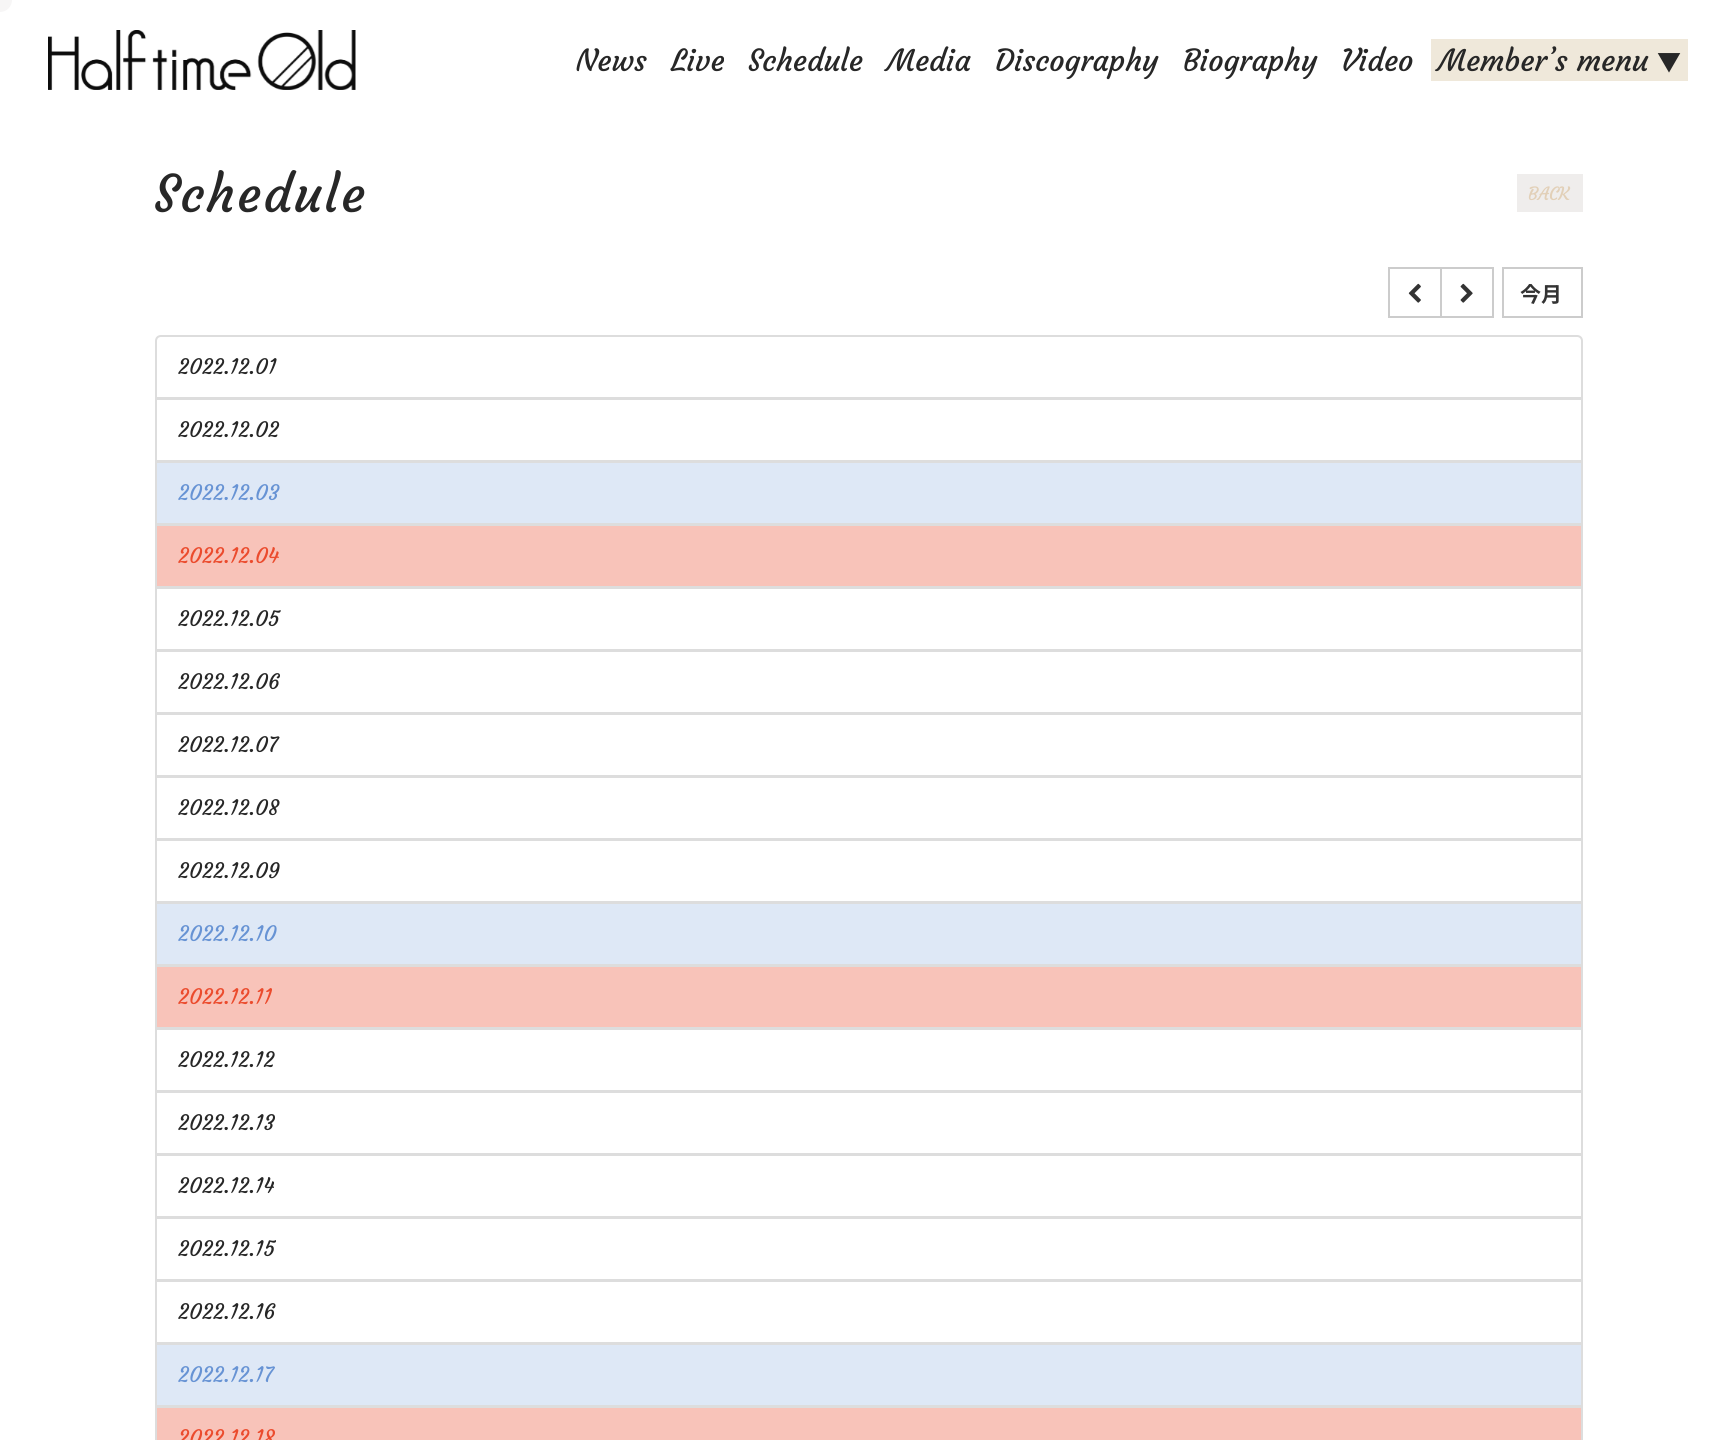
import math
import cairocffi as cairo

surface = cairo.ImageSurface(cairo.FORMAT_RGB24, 1735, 1440)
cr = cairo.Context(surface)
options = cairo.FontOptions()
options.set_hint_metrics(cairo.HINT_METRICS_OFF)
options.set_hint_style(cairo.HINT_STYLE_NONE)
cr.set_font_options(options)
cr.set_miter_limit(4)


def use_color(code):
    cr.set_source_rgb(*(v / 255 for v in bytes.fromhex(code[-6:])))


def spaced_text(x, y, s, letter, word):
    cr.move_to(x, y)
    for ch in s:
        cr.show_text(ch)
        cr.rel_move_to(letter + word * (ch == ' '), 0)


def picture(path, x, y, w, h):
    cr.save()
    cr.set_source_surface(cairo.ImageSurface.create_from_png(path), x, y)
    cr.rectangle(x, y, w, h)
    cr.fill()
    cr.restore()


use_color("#ffffff")
cr.paint()
use_color("#f7f6f6")
cr.arc(0, 0, 12, 0, 2 * math.pi)
cr.fill()
picture("img1.png", 48, 30, 308, 60)
cr.select_font_face("Courgette")
cr.set_font_size(30)
use_color("#272727")
cr.move_to(576, 71)
cr.show_text("News")
cr.move_to(671, 71)
cr.show_text("Live")
cr.move_to(748, 71)
cr.show_text("Schedule")
cr.move_to(887, 71)
cr.show_text("Media")
cr.move_to(995, 71)
cr.show_text("Discography")
cr.move_to(1183, 71)
cr.show_text("Biography")
cr.move_to(1341, 71)
cr.show_text("Video")
use_color("#efe8da")
cr.rectangle(1431, 39, 257, 42)
cr.fill()
use_color("#272727")
cr.move_to(1438, 71)
cr.show_text("Member’s menu")
cr.select_font_face("Noto Sans JP")
cr.set_font_size(24)
cr.move_to(1657, 71)
cr.show_text("▼")
cr.select_font_face("Courgette")
cr.set_font_size(51)
spaced_text(154, 212, "Schedule", 2.25, 0)
use_color("#efedec")
cr.rectangle(1517, 174, 66, 38)
cr.fill()
cr.set_font_size(18)
use_color("#e2d0b8")
cr.move_to(1528, 200)
cr.show_text("BACK")
cr.rectangle(1389, 268, 52, 49)
use_color("#cccccc")
cr.stroke()
picture("img2.png", 1408, 283, 13, 20)
cr.rectangle(1441, 268, 52, 49)
cr.stroke()
picture("img3.png", 1460, 283, 13, 20)
cr.rectangle(1503, 268, 79, 49)
cr.stroke()
cr.select_font_face("Noto Sans JP", cairo.FONT_SLANT_NORMAL, cairo.FONT_WEIGHT_BOLD)
cr.set_font_size(21)
use_color("#333333")
cr.move_to(1520, 302)
cr.show_text("今月")
cr.new_path()
cr.move_to(161, 336)
cr.line_to(1577, 336)
cr.curve_to(1580, 336, 1582, 338, 1582, 341)
cr.line_to(1582, 398)
cr.line_to(156, 398)
cr.line_to(156, 341)
cr.curve_to(156, 338, 158, 336, 161, 336)
cr.close_path()
use_color("#dddddd")
cr.stroke()
cr.select_font_face("Courgette")
use_color("#272727")
cr.move_to(178, 374)
cr.show_text("2022.12.01")
cr.rectangle(156, 399, 1426, 62)
use_color("#dddddd")
cr.stroke()
use_color("#272727")
cr.move_to(178, 437)
cr.show_text("2022.12.02")
use_color("#dee8f6")
cr.rectangle(156, 462, 1426, 62)
cr.fill_preserve()
use_color("#dddddd")
cr.stroke()
use_color("#6793d4")
cr.move_to(178, 500)
cr.show_text("2022.12.03")
use_color("#f8c3b9")
cr.rectangle(156, 525, 1426, 62)
cr.fill_preserve()
use_color("#dddddd")
cr.stroke()
use_color("#eb4b2d")
cr.move_to(178, 563)
cr.show_text("2022.12.04")
cr.rectangle(156, 588, 1426, 62)
use_color("#dddddd")
cr.stroke()
use_color("#272727")
cr.move_to(178, 626)
cr.show_text("2022.12.05")
cr.rectangle(156, 651, 1426, 62)
use_color("#dddddd")
cr.stroke()
use_color("#272727")
cr.move_to(178, 689)
cr.show_text("2022.12.06")
cr.rectangle(156, 714, 1426, 62)
use_color("#dddddd")
cr.stroke()
use_color("#272727")
cr.move_to(178, 752)
cr.show_text("2022.12.07")
cr.rectangle(156, 777, 1426, 62)
use_color("#dddddd")
cr.stroke()
use_color("#272727")
cr.move_to(178, 815)
cr.show_text("2022.12.08")
cr.rectangle(156, 840, 1426, 62)
use_color("#dddddd")
cr.stroke()
use_color("#272727")
cr.move_to(178, 878)
cr.show_text("2022.12.09")
use_color("#dee8f6")
cr.rectangle(156, 903, 1426, 62)
cr.fill_preserve()
use_color("#dddddd")
cr.stroke()
use_color("#6793d4")
cr.move_to(178, 941)
cr.show_text("2022.12.10")
use_color("#f8c3b9")
cr.rectangle(156, 966, 1426, 62)
cr.fill_preserve()
use_color("#dddddd")
cr.stroke()
use_color("#eb4b2d")
cr.move_to(178, 1004)
cr.show_text("2022.12.11")
cr.rectangle(156, 1029, 1426, 62)
use_color("#dddddd")
cr.stroke()
use_color("#272727")
cr.move_to(178, 1067)
cr.show_text("2022.12.12")
cr.rectangle(156, 1092, 1426, 62)
use_color("#dddddd")
cr.stroke()
use_color("#272727")
cr.move_to(178, 1130)
cr.show_text("2022.12.13")
cr.rectangle(156, 1155, 1426, 62)
use_color("#dddddd")
cr.stroke()
use_color("#272727")
cr.move_to(178, 1193)
cr.show_text("2022.12.14")
cr.rectangle(156, 1218, 1426, 62)
use_color("#dddddd")
cr.stroke()
use_color("#272727")
cr.move_to(178, 1256)
cr.show_text("2022.12.15")
cr.rectangle(156, 1281, 1426, 62)
use_color("#dddddd")
cr.stroke()
use_color("#272727")
cr.move_to(178, 1319)
cr.show_text("2022.12.16")
use_color("#dee8f6")
cr.rectangle(156, 1344, 1426, 62)
cr.fill_preserve()
use_color("#dddddd")
cr.stroke()
use_color("#6793d4")
cr.move_to(178, 1382)
cr.show_text("2022.12.17")
use_color("#f8c3b9")
cr.rectangle(156, 1407, 1426, 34)
cr.fill_preserve()
use_color("#dddddd")
cr.stroke()
use_color("#eb4b2d")
cr.move_to(178, 1445)
cr.show_text("2022.12.18")
surface.write_to_png("result.png")
